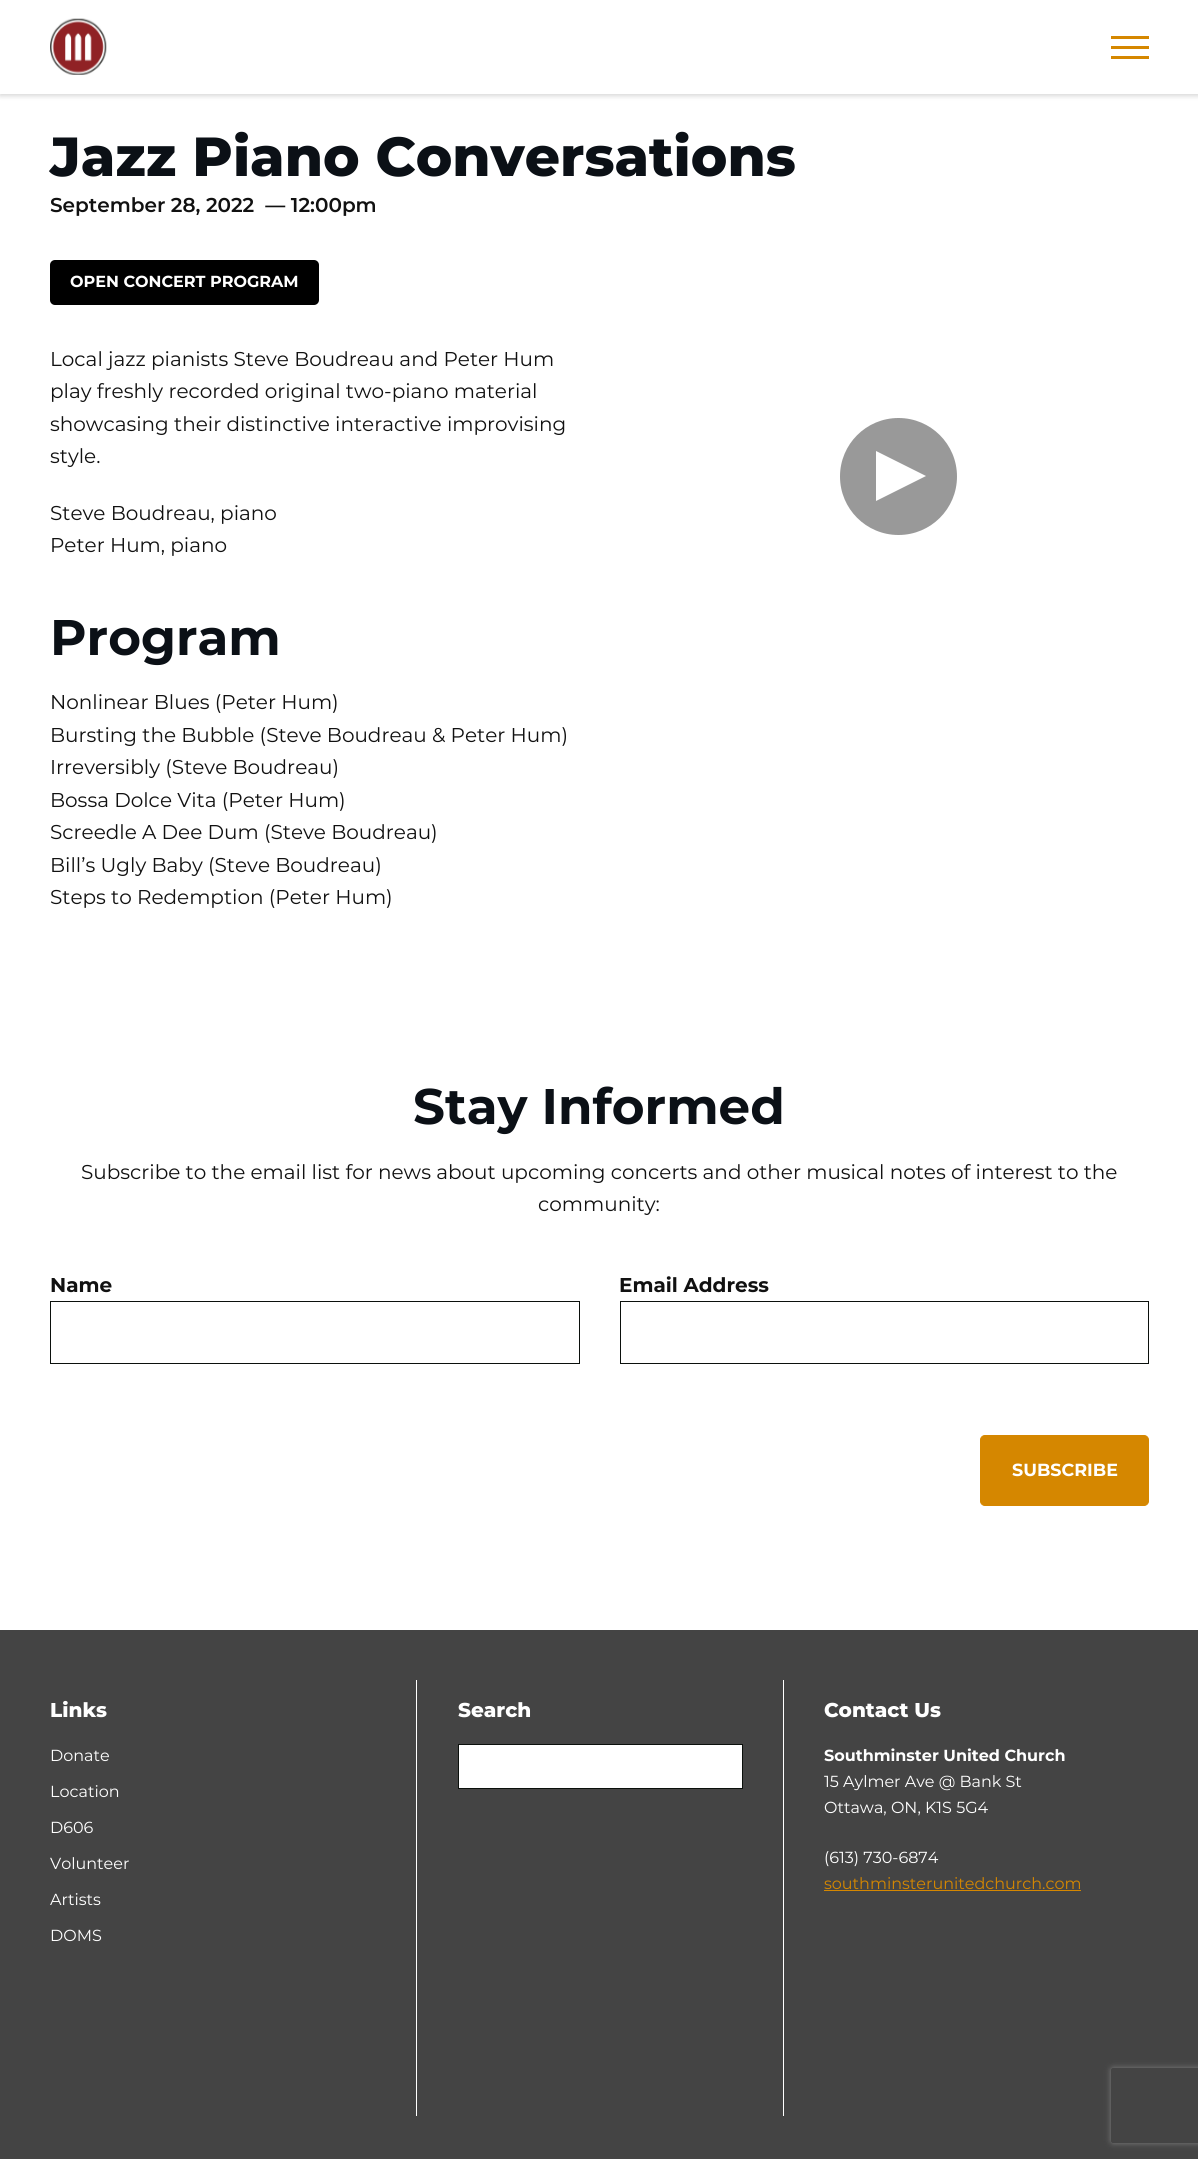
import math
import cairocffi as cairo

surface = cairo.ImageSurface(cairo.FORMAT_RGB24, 1198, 2159)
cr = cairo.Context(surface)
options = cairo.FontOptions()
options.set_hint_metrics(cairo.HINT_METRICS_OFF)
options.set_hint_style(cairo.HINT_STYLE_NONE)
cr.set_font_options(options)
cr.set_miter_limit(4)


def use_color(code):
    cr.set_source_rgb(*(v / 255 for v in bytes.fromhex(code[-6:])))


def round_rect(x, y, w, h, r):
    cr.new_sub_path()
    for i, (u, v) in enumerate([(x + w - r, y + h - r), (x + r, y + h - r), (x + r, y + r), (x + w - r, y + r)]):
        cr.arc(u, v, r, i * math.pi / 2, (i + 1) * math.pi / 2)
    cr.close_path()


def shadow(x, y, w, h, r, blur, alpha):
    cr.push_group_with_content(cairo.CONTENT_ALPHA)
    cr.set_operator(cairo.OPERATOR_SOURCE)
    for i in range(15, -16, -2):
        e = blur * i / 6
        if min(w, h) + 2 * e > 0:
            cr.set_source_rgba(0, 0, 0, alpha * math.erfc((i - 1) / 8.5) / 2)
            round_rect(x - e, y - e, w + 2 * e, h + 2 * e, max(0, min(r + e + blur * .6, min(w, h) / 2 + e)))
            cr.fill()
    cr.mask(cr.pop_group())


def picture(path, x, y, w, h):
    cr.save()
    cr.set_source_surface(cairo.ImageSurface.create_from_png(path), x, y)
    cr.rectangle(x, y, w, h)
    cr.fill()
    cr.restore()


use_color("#ffffff")
cr.paint()
use_color("#000000")
shadow(0, 3, 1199, 93, 0, 2.5, 0.16)
use_color("#ffffff")
cr.rectangle(0, 0, 1198, 94)
cr.fill()
picture("img1.png", 50, 18, 57, 57)
use_color("#d58700")
cr.rectangle(1111, 36, 38, 3)
cr.fill()
cr.rectangle(1111, 46, 38, 3)
cr.fill()
cr.rectangle(1111, 56, 38, 3)
cr.fill()
cr.select_font_face("Montserrat ExtraBold")
cr.set_font_size(55)
use_color("#0b1016")
cr.move_to(50, 176)
cr.show_text("Jazz Piano Conversations")
cr.select_font_face("Montserrat SemiBold")
cr.set_font_size(20)
use_color("#111111")
cr.move_to(50, 212)
cr.show_text("September 28, 2022  — 12:00pm")
use_color("#000000")
round_rect(50, 260, 269, 45, 5)
cr.fill()
cr.select_font_face("Montserrat", cairo.FONT_SLANT_NORMAL, cairo.FONT_WEIGHT_BOLD)
cr.set_font_size(16)
use_color("#ffffff")
cr.move_to(70, 287)
cr.show_text("OPEN CONCERT PROGRAM")
cr.select_font_face("Montserrat")
cr.set_font_size(20)
use_color("#111111")
cr.move_to(50, 366)
cr.show_text("Local jazz pianists Steve Boudreau and Peter Hum")
cr.move_to(50, 398)
cr.show_text("play freshly recorded original two-piano material")
cr.move_to(50, 431)
cr.show_text("showcasing their distinctive interactive improvising")
cr.move_to(50, 463)
cr.show_text("style.")
cr.move_to(50, 520)
cr.show_text("Steve Boudreau, piano")
cr.move_to(50, 552)
cr.show_text("Peter Hum, piano")
cr.select_font_face("Montserrat", cairo.FONT_SLANT_NORMAL, cairo.FONT_WEIGHT_BOLD)
cr.set_font_size(50)
use_color("#0b1016")
cr.move_to(50, 655)
cr.show_text("Program")
cr.select_font_face("Montserrat")
cr.set_font_size(20)
use_color("#111111")
cr.move_to(50, 709)
cr.show_text("Nonlinear Blues (Peter Hum)")
cr.move_to(50, 742)
cr.show_text("Bursting the Bubble (Steve Boudreau & Peter Hum)")
cr.move_to(50, 774)
cr.show_text("Irreversibly (Steve Boudreau)")
cr.move_to(50, 807)
cr.show_text("Bossa Dolce Vita (Peter Hum)")
cr.move_to(50, 839)
cr.show_text("Screedle A Dee Dum (Steve Boudreau)")
cr.move_to(50, 872)
cr.show_text("Bill’s Ugly Baby (Steve Boudreau)")
cr.move_to(50, 904)
cr.show_text("Steps to Redemption (Peter Hum)")
use_color("#999999")
cr.new_path()
cr.arc(898.5, 476.5, 60.5, 0, 2 * math.pi)
cr.fill_preserve()
use_color("#ffffff")
cr.set_line_width(4)
cr.stroke()
cr.new_path()
cr.move_to(876, 501)
cr.line_to(876, 451)
cr.line_to(926, 476)
cr.close_path()
cr.fill()
cr.select_font_face("Montserrat", cairo.FONT_SLANT_NORMAL, cairo.FONT_WEIGHT_BOLD)
cr.set_font_size(50)
use_color("#0b1016")
cr.move_to(413, 1124)
cr.show_text("Stay Informed")
cr.select_font_face("Montserrat")
cr.set_font_size(20)
use_color("#111111")
cr.move_to(81, 1179)
cr.show_text("Subscribe to the email list for news about upcoming concerts and other musical notes of interest to the")
cr.move_to(538, 1211)
cr.show_text("community:")
cr.select_font_face("Montserrat", cairo.FONT_SLANT_NORMAL, cairo.FONT_WEIGHT_BOLD)
cr.move_to(50, 1292)
cr.show_text("Name")
cr.rectangle(50.5, 1301.5, 529, 62)
use_color("#0b100c")
cr.set_line_width(1)
cr.stroke()
use_color("#111111")
cr.move_to(619, 1292)
cr.show_text("Email Address")
cr.rectangle(620.5, 1301.5, 528, 62)
use_color("#0b100c")
cr.stroke()
use_color("#d58700")
round_rect(980.5, 1435.5, 168, 70, 4.5)
cr.fill_preserve()
cr.stroke()
cr.set_font_size(17.5)
use_color("#ffffff")
cr.move_to(1012, 1476)
cr.show_text("SUBSCRIBE")
use_color("#444444")
cr.rectangle(0, 1630, 1198, 529)
cr.fill()
cr.select_font_face("Montserrat ExtraBold")
cr.set_font_size(20)
use_color("#ffffff")
cr.move_to(50, 1717)
cr.show_text("Links")
cr.select_font_face("Montserrat")
cr.set_font_size(16)
cr.move_to(50, 1761)
cr.show_text("Donate")
cr.move_to(50, 1797)
cr.show_text("Location")
cr.move_to(50, 1833)
cr.show_text("D606")
cr.move_to(50, 1869)
cr.show_text("Volunteer")
cr.move_to(50, 1905)
cr.show_text("Artists")
cr.move_to(50, 1941)
cr.show_text("DOMS")
cr.rectangle(416, 1680, 1, 436)
cr.fill()
cr.select_font_face("Montserrat ExtraBold")
cr.set_font_size(20)
cr.move_to(458, 1717)
cr.show_text("Search")
cr.rectangle(458.5, 1744.5, 284, 44)
cr.fill_preserve()
use_color("#0b100c")
cr.stroke()
use_color("#ffffff")
cr.rectangle(783, 1680, 1, 436)
cr.fill()
cr.move_to(824, 1717)
cr.show_text("Contact Us")
cr.select_font_face("Montserrat", cairo.FONT_SLANT_NORMAL, cairo.FONT_WEIGHT_BOLD)
cr.set_font_size(16)
cr.move_to(824, 1761)
cr.show_text("Southminster United Church")
cr.select_font_face("Montserrat")
cr.move_to(824, 1787)
cr.show_text("15 Aylmer Ave @ Bank St")
cr.move_to(824, 1813)
cr.show_text("Ottawa, ON, K1S 5G4")
cr.move_to(824, 1863)
cr.show_text("(613) 730-6874")
use_color("#d58700")
cr.move_to(824, 1889)
cr.show_text("southminsterunitedchurch.com")
cr.rectangle(824, 1890, 257, 1)
cr.fill()
cr.save()
cr.set_fill_rule(cairo.FILL_RULE_EVEN_ODD)
cr.new_path()
cr.move_to(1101, 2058)
cr.line_to(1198, 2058)
cr.line_to(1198, 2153)
cr.line_to(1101, 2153)
cr.close_path()
cr.move_to(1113.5, 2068)
cr.line_to(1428.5, 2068)
cr.curve_to(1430, 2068, 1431, 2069, 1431, 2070.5)
cr.line_to(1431, 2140.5)
cr.curve_to(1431, 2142, 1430, 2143, 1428.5, 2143)
cr.line_to(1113.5, 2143)
cr.curve_to(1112, 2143, 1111, 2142, 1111, 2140.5)
cr.line_to(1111, 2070.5)
cr.curve_to(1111, 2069, 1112, 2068, 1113.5, 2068)
cr.close_path()
cr.clip()
use_color("#808080")
shadow(1111, 2068, 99, 75, 2.5, 3, 1)
cr.restore()
surface.write_to_png("result.png")
